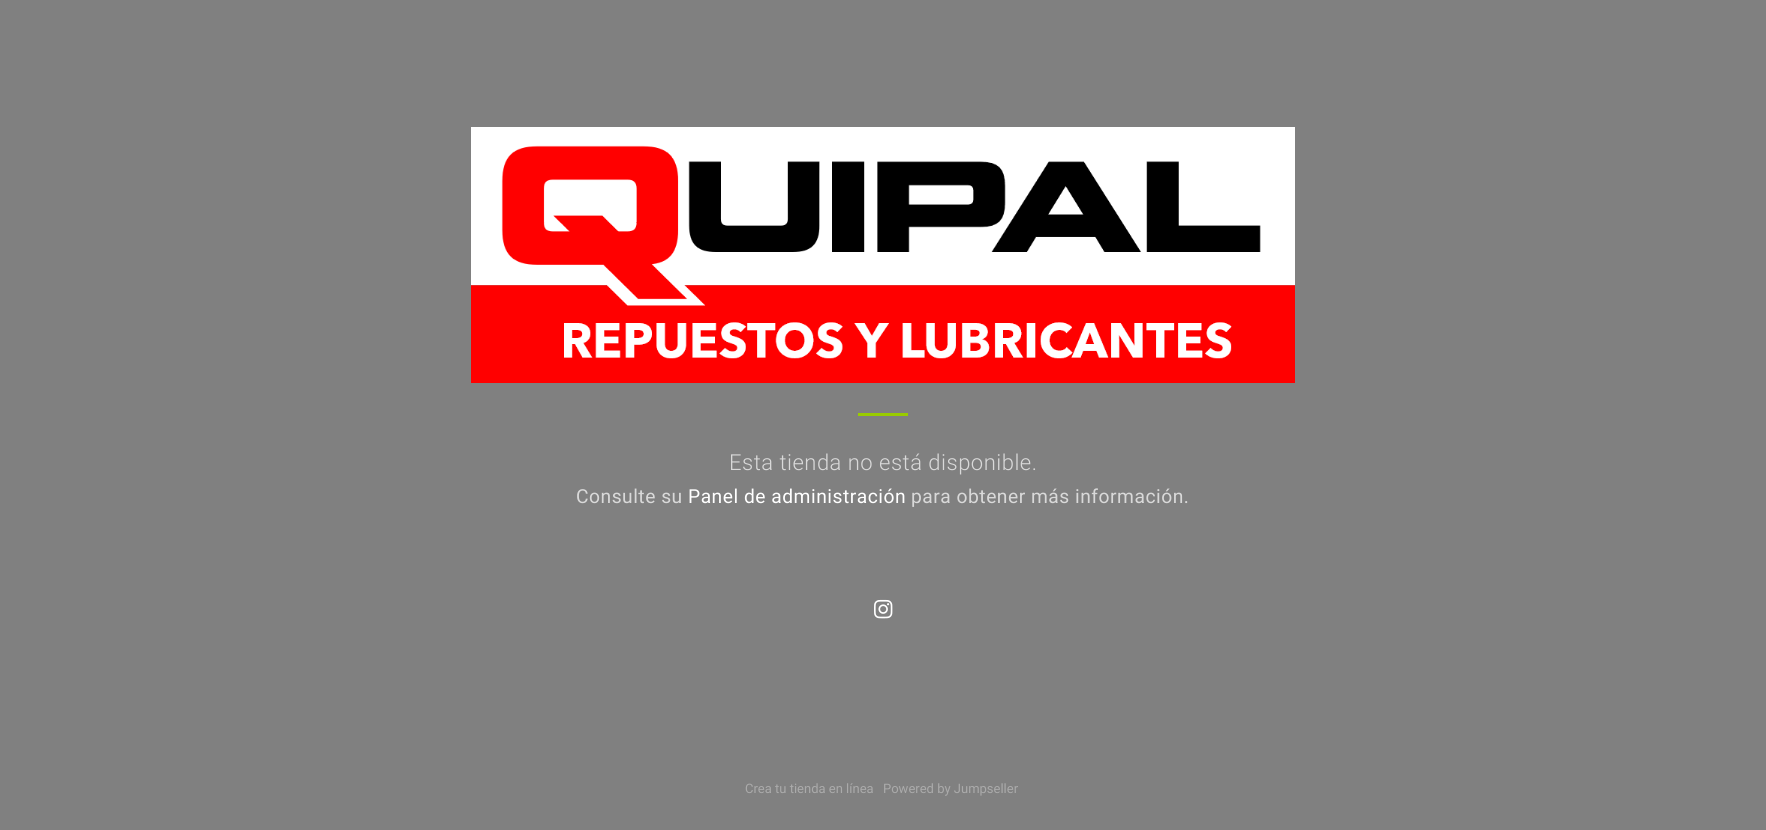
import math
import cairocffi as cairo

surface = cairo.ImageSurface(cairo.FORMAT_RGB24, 1766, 830)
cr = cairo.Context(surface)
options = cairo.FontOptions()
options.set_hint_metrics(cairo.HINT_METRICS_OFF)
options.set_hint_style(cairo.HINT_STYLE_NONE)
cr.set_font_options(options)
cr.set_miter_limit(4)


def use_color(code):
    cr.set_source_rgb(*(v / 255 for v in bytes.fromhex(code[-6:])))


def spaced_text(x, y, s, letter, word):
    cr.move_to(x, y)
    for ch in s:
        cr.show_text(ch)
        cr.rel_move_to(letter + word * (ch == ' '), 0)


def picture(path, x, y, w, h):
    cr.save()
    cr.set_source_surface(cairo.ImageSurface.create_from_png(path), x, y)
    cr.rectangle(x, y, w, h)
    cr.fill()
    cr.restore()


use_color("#808080")
cr.paint()
picture("img1.png", 471, 127, 824, 256)
use_color("#99cc00")
cr.rectangle(858, 413, 50, 3)
cr.fill()
cr.select_font_face("Roboto Light")
cr.set_font_size(22)
use_color("#d9d9d9")
spaced_text(729, 470, "Esta tienda no está disponible.", 0.5, 0)
cr.select_font_face("Roboto")
cr.set_font_size(19.25)
spaced_text(576, 503, "Consulte su", 0.5, 0)
use_color("#ffffff")
spaced_text(688, 503, "Panel de administración", 0.5, 0)
use_color("#d9d9d9")
spaced_text(911, 503, "para obtener más información.", 0.5, 0)
picture("img2.png", 874, 599, 19, 20)
cr.set_font_size(13)
use_color("#aaaaaa")
cr.move_to(745, 793)
cr.show_text("Crea tu tienda en línea")
cr.move_to(883, 793)
cr.show_text("Powered by Jumpseller")
surface.write_to_png("result.png")
